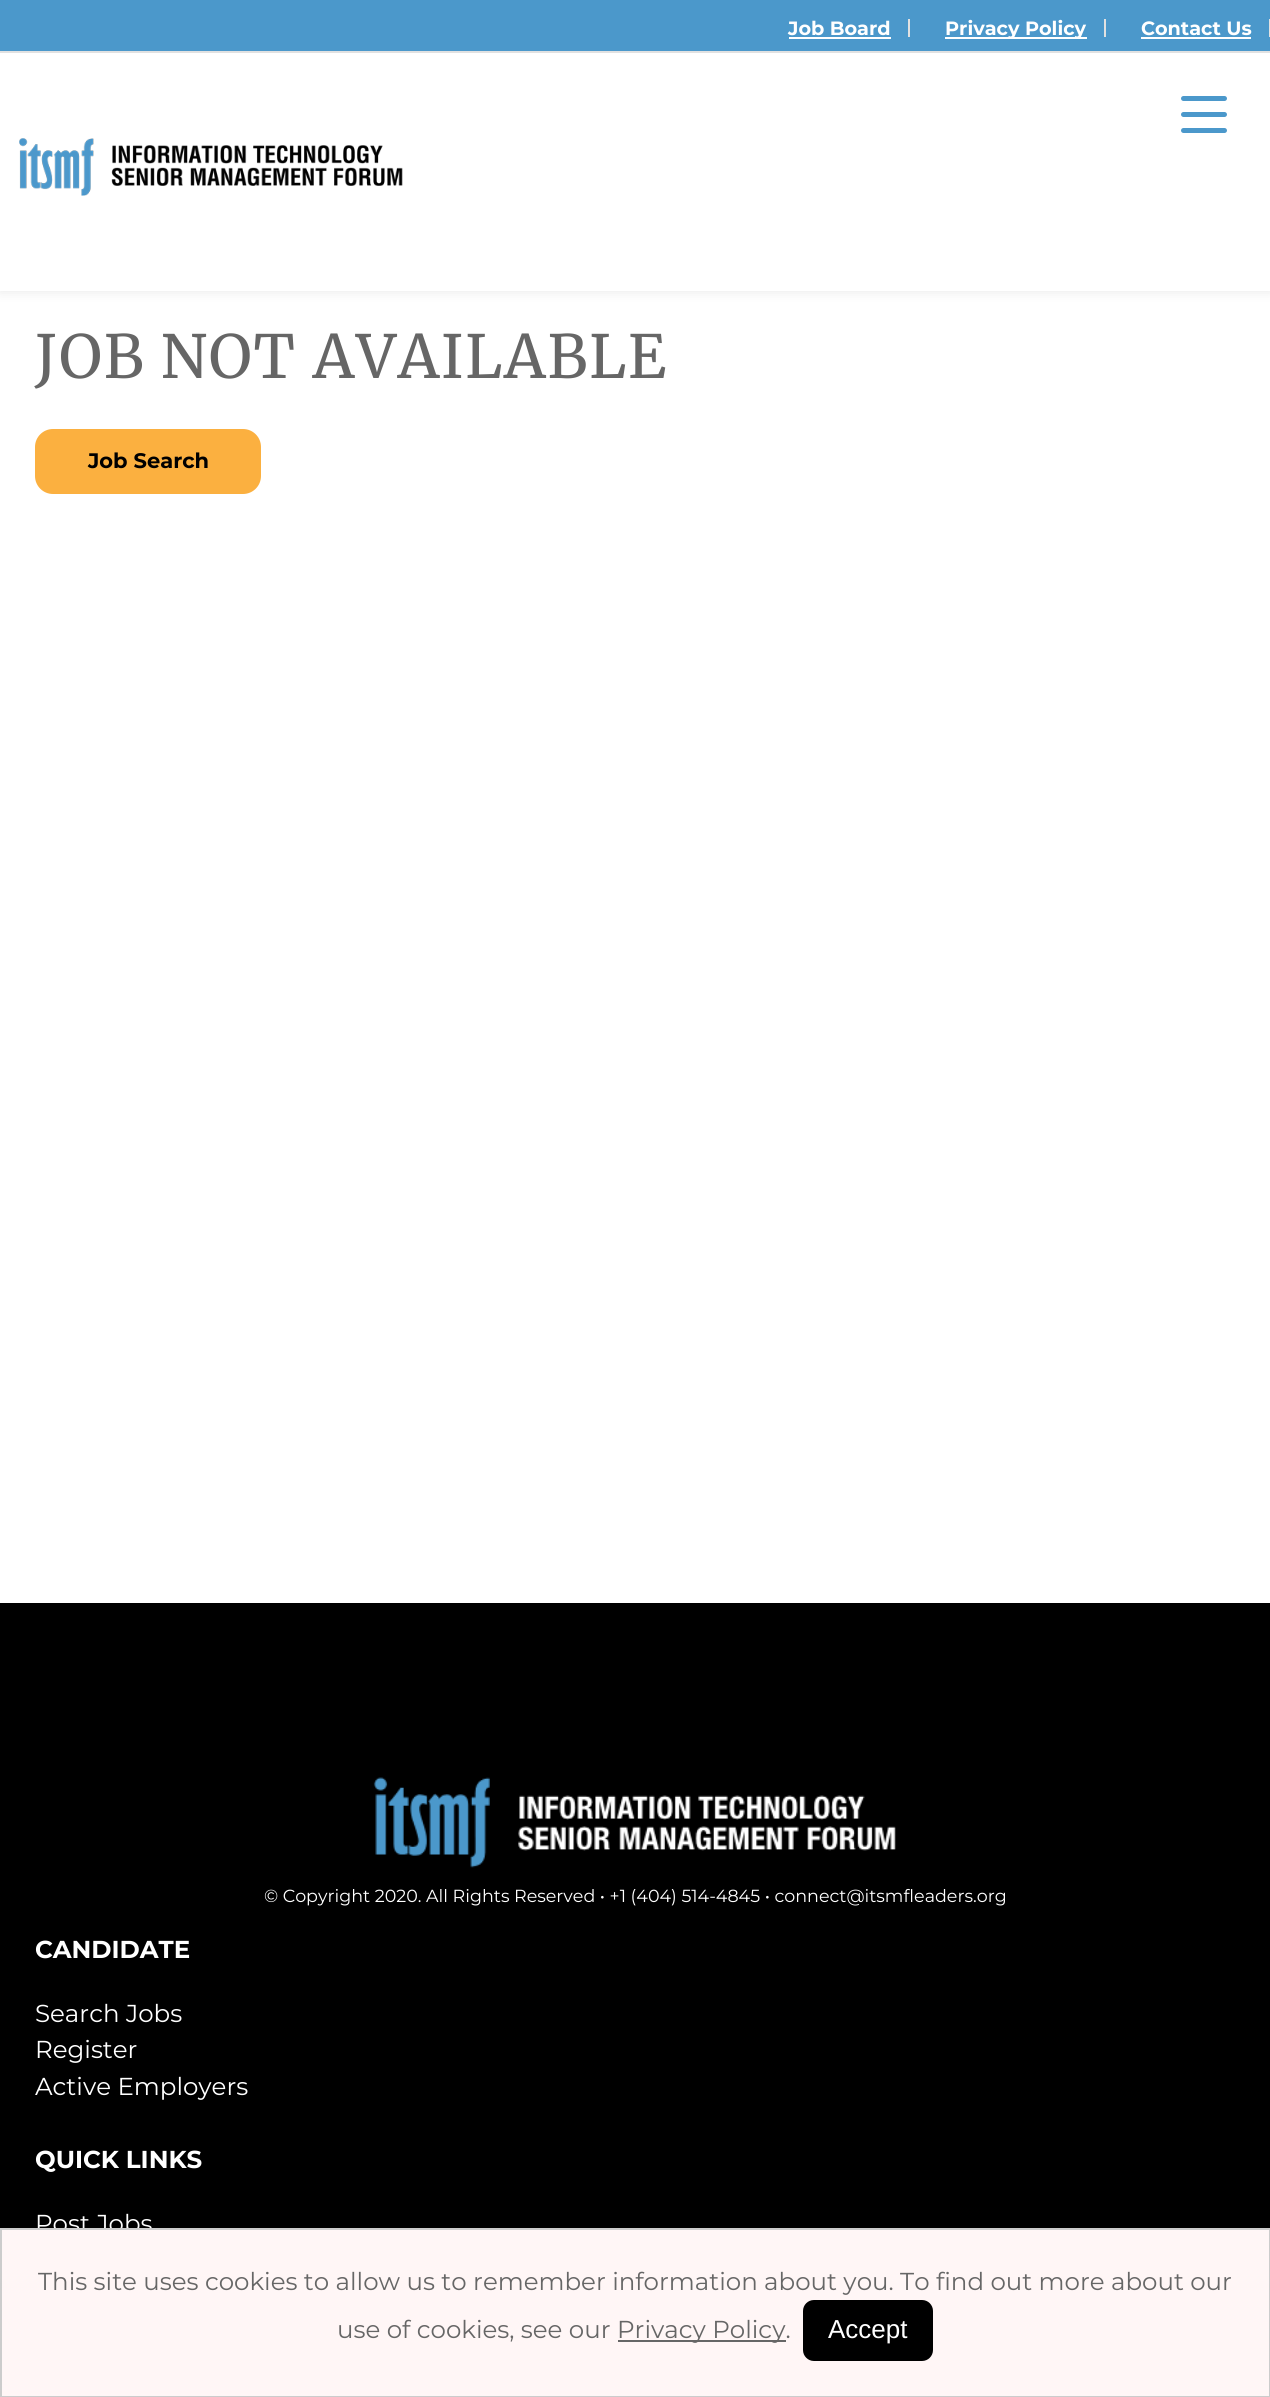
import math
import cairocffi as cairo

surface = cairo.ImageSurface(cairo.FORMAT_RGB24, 1270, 2397)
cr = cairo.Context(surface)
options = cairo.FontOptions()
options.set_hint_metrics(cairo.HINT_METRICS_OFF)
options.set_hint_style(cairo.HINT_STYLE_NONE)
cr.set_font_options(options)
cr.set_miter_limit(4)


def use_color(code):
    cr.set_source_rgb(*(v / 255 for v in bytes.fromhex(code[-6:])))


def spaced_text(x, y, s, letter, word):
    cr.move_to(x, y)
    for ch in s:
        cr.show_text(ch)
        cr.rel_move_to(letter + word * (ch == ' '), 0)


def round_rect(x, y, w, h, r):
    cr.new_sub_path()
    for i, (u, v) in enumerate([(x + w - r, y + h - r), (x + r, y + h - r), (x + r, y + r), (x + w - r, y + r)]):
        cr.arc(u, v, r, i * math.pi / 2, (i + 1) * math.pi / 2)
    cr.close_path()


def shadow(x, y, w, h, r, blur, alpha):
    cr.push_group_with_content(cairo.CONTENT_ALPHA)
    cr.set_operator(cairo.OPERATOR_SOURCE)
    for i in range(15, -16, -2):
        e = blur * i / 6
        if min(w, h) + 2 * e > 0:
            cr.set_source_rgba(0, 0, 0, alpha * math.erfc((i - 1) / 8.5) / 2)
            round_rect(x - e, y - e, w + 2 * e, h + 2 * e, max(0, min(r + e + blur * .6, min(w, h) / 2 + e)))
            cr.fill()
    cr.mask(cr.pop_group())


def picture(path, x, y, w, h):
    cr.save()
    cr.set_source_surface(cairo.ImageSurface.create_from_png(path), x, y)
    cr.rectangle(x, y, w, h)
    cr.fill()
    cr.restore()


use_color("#ffffff")
cr.paint()
use_color("#000000")
shadow(0, 0, 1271, 291, 0, 6, 0.1)
use_color("#ffffff")
cr.rectangle(0, 53, 1270, 238)
cr.fill()
use_color("#4b98cb")
cr.rectangle(0, 0, 1270, 51)
cr.fill()
use_color("#e1e1e1")
cr.rectangle(0, 51, 1270, 2)
cr.fill()
cr.rectangle(908, 19, 2, 18)
cr.fill()
cr.select_font_face("Montserrat", cairo.FONT_SLANT_NORMAL, cairo.FONT_WEIGHT_BOLD)
cr.set_font_size(19.25)
use_color("#ffffff")
cr.move_to(788, 35)
cr.show_text("Job Board")
cr.rectangle(789, 37, 102, 2)
cr.fill()
use_color("#e1e1e1")
cr.rectangle(1104, 19, 2, 18)
cr.fill()
use_color("#ffffff")
cr.rectangle(945, 37, 142, 2)
cr.fill()
cr.move_to(945, 35)
cr.show_text("Privacy Policy")
use_color("#e1e1e1")
cr.rectangle(1269, 19, 1, 18)
cr.fill()
use_color("#ffffff")
cr.move_to(1141, 35)
cr.show_text("Contact Us")
cr.rectangle(1141, 37, 110, 2)
cr.fill()
use_color("#4b98cb")
round_rect(1181, 96, 46, 5, 2.5)
cr.fill()
round_rect(1181, 112, 46, 5, 2.5)
cr.fill()
round_rect(1181, 128, 46, 5, 2.5)
cr.fill()
picture("img1.png", 19, 138, 384, 58)
cr.select_font_face("Merriweather")
cr.set_font_size(59.5)
use_color("#666666")
spaced_text(35, 378, "JOB NOT AVAILABLE", 1.75, 0)
use_color("#fbb040")
round_rect(35, 429, 226, 65, 18)
cr.fill()
cr.select_font_face("Montserrat", cairo.FONT_SLANT_NORMAL, cairo.FONT_WEIGHT_BOLD)
cr.set_font_size(21)
use_color("#000000")
cr.move_to(88, 468)
cr.show_text("Job Search")
cr.rectangle(0, 1603, 1270, 625)
cr.fill()
picture("img2.png", 373, 1777, 523, 91)
cr.select_font_face("Montserrat")
cr.set_font_size(17.5)
use_color("#ffffff")
cr.move_to(264, 1902)
cr.show_text("© Copyright 2020. All Rights Reserved • +1 (404) 514-4845 • connect@itsmfleaders.org")
cr.select_font_face("Montserrat", cairo.FONT_SLANT_NORMAL, cairo.FONT_WEIGHT_BOLD)
cr.set_font_size(24.5)
cr.move_to(35, 1958)
cr.show_text("CANDIDATE")
cr.select_font_face("Montserrat")
cr.move_to(35, 2022)
cr.show_text("Search Jobs")
cr.move_to(35, 2058)
cr.show_text("Register")
cr.move_to(35, 2095)
cr.show_text("Active Employers")
cr.select_font_face("Montserrat", cairo.FONT_SLANT_NORMAL, cairo.FONT_WEIGHT_BOLD)
cr.move_to(35, 2168)
cr.show_text("QUICK LINKS")
cr.select_font_face("Montserrat")
cr.move_to(35, 2232)
cr.show_text("Post Jobs")
use_color("#fff6f6")
cr.rectangle(1, 2229, 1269, 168)
cr.fill_preserve()
use_color("#cccccc")
cr.stroke()
use_color("#666666")
cr.move_to(38, 2290)
cr.show_text("This site uses cookies to allow us to remember information about you. To find out more about our")
cr.move_to(337, 2338)
cr.show_text("use of cookies, see our")
cr.rectangle(618, 2340, 168, 2)
cr.fill()
cr.move_to(617, 2338)
cr.show_text("Privacy Policy.")
use_color("#000000")
round_rect(803, 2300, 130, 61, 11)
cr.fill()
cr.select_font_face("Liberation Sans")
cr.set_font_size(26)
use_color("#ffffff")
cr.move_to(828, 2338)
cr.show_text("Accept")
surface.write_to_png("result.png")
